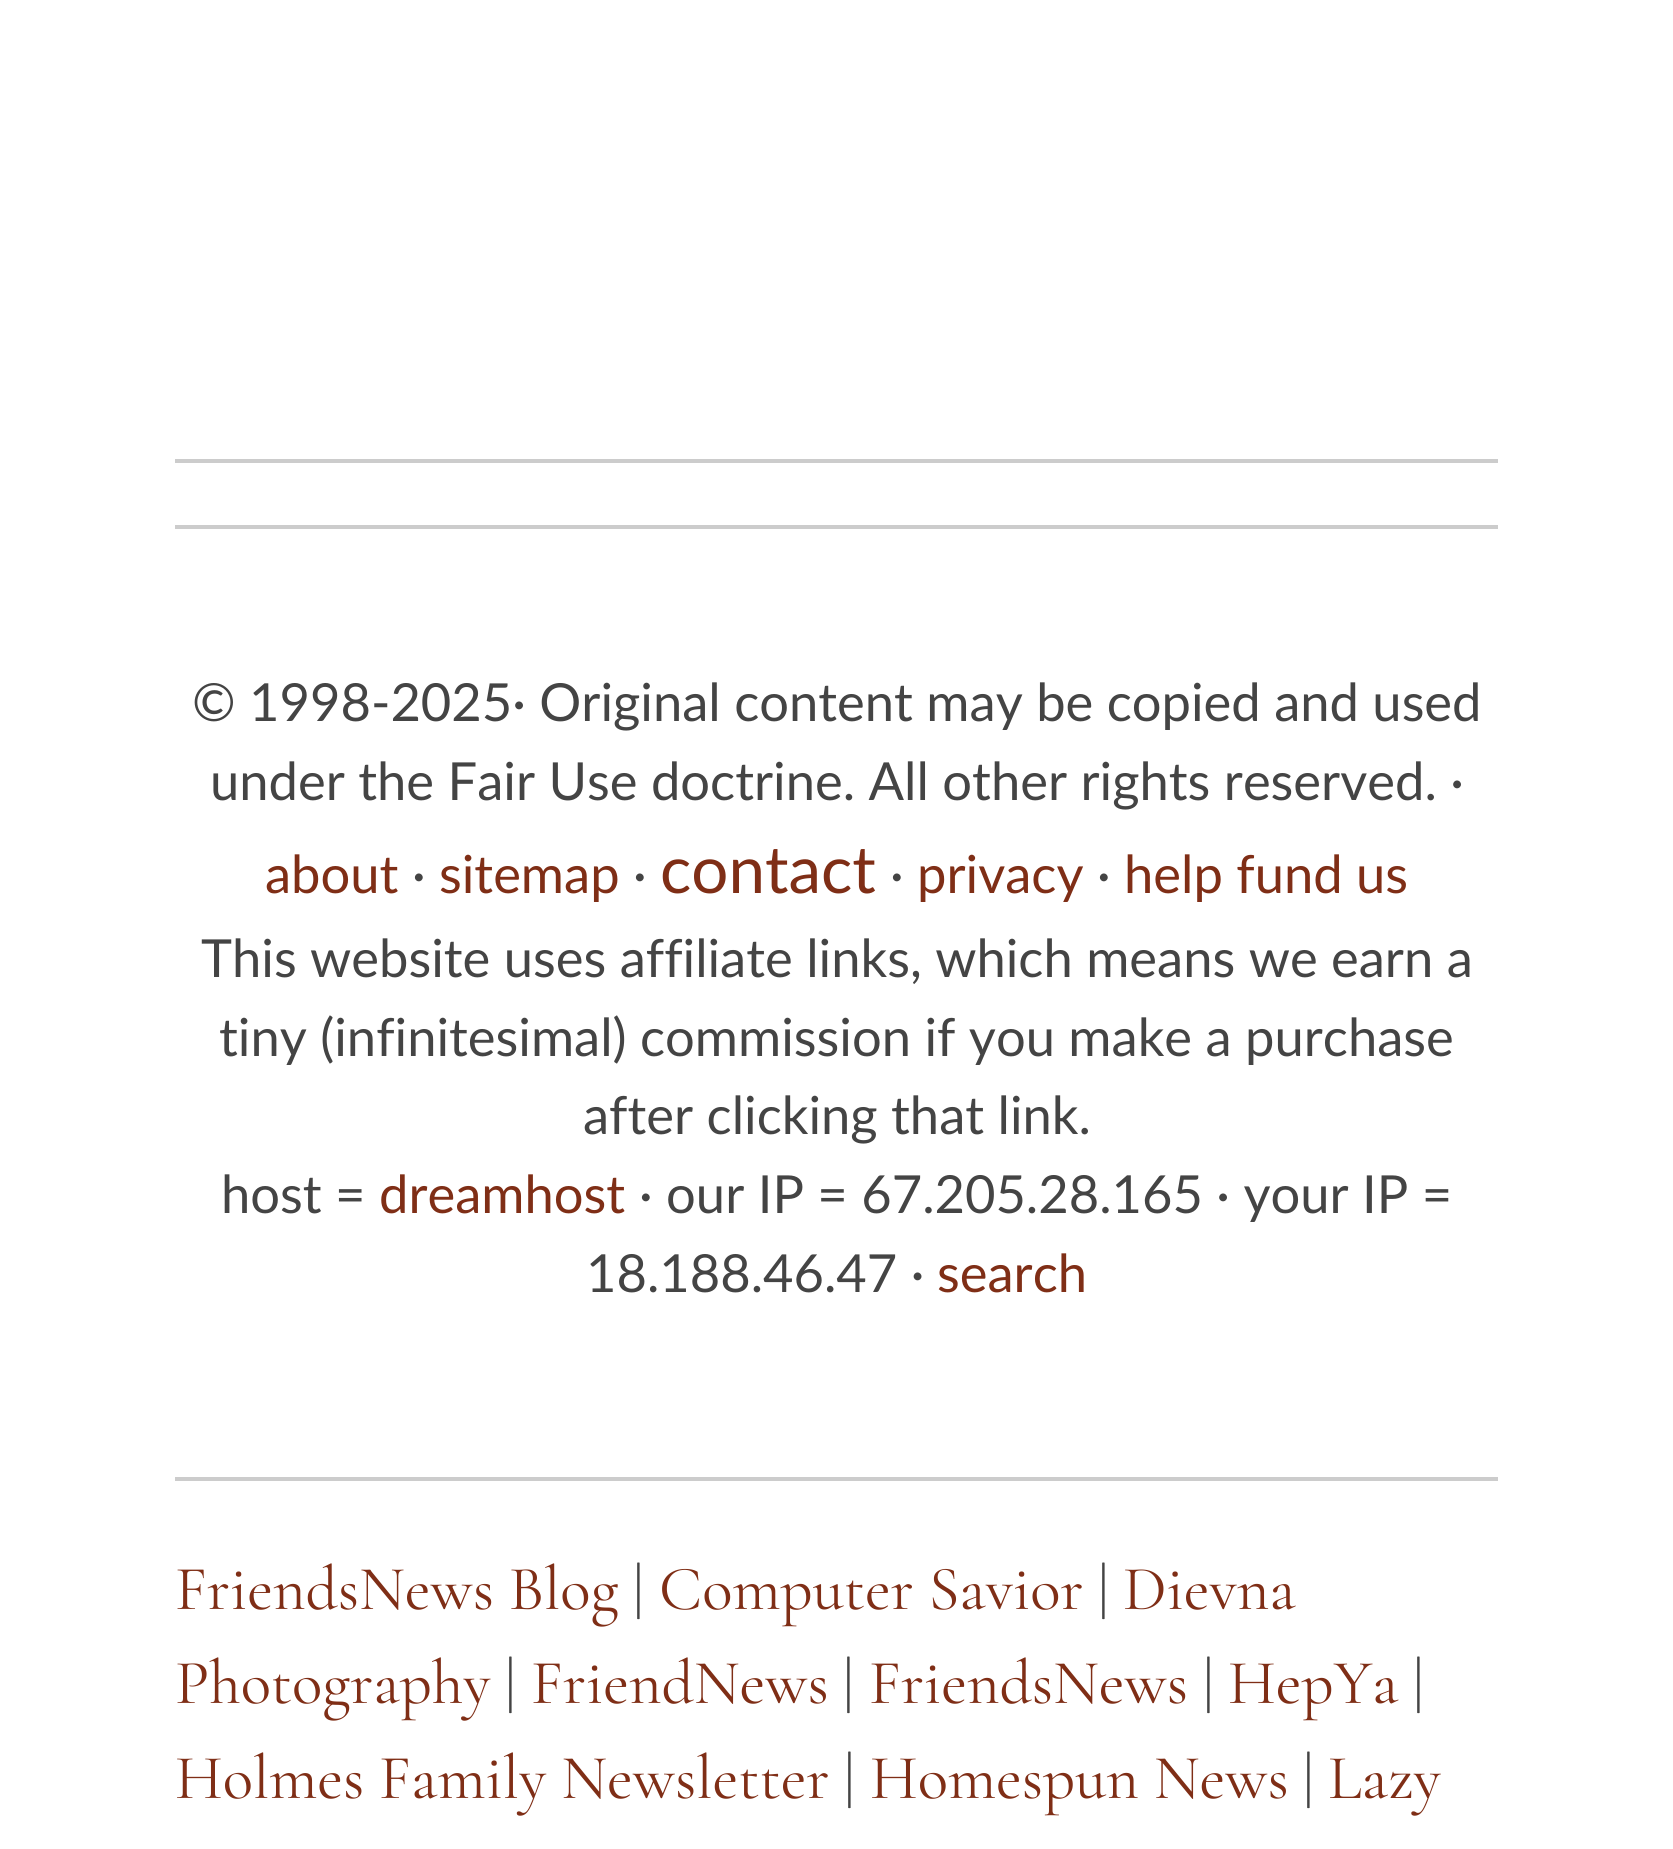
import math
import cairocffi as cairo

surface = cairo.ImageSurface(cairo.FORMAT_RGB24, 1673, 1849)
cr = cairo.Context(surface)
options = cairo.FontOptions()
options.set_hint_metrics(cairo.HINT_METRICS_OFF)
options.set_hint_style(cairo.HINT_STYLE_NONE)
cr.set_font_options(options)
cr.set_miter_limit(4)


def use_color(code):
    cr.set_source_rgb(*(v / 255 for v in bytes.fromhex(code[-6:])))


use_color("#ffffff")
cr.paint()
use_color("#cccccc")
cr.rectangle(175, 459, 1323, 4)
cr.fill()
cr.rectangle(175, 525, 1323, 4)
cr.fill()
cr.select_font_face("Lato")
cr.set_font_size(52.5)
use_color("#444444")
cr.move_to(192, 721)
cr.show_text("© 1998-2025· Original content may be copied and used")
cr.move_to(210, 800)
cr.show_text("under the Fair Use doctrine. All other rights reserved. ·")
use_color("#7f2e16")
cr.move_to(265, 893)
cr.show_text("about")
use_color("#444444")
cr.move_to(412, 893)
cr.show_text("·")
use_color("#7f2e16")
cr.move_to(439, 893)
cr.show_text("sitemap")
use_color("#444444")
cr.move_to(633, 893)
cr.show_text("·")
cr.set_font_size(65.5)
use_color("#7f2e16")
cr.move_to(660, 893)
cr.show_text("contact")
cr.set_font_size(52.5)
use_color("#444444")
cr.move_to(890, 893)
cr.show_text("·")
use_color("#7f2e16")
cr.move_to(917, 893)
cr.show_text("privacy")
use_color("#444444")
cr.move_to(1097, 893)
cr.show_text("·")
use_color("#7f2e16")
cr.move_to(1124, 893)
cr.show_text("help fund us")
use_color("#444444")
cr.move_to(201, 977)
cr.show_text("This website uses affiliate links, which means we earn a")
cr.move_to(219, 1056)
cr.show_text("tiny (infinitesimal) commission if you make a purchase")
cr.move_to(583, 1134)
cr.show_text("after clicking that link.")
cr.move_to(221, 1213)
cr.show_text("host =")
use_color("#7f2e16")
cr.move_to(379, 1213)
cr.show_text("dreamhost")
use_color("#444444")
cr.move_to(639, 1213)
cr.show_text("· our IP = 67.205.28.165 · your IP =")
cr.move_to(586, 1292)
cr.show_text("18.188.46.47 ·")
use_color("#7f2e16")
cr.move_to(937, 1292)
cr.show_text("search")
use_color("#cccccc")
cr.rectangle(175, 1477, 1323, 4)
cr.fill()
cr.select_font_face("Cormorant Garamond")
cr.set_font_size(63)
use_color("#7f2e16")
cr.move_to(175, 1609)
cr.show_text("FriendsNews Blog")
use_color("#444444")
cr.move_to(633, 1609)
cr.show_text("|")
use_color("#7f2e16")
cr.move_to(659, 1609)
cr.show_text("Computer Savior")
use_color("#444444")
cr.move_to(1098, 1609)
cr.show_text("|")
use_color("#7f2e16")
cr.move_to(1123, 1609)
cr.show_text("Dievna")
cr.move_to(175, 1703)
cr.show_text("Photography")
use_color("#444444")
cr.move_to(505, 1703)
cr.show_text("|")
use_color("#7f2e16")
cr.move_to(531, 1703)
cr.show_text("FriendNews")
use_color("#444444")
cr.move_to(843, 1703)
cr.show_text("|")
use_color("#7f2e16")
cr.move_to(869, 1703)
cr.show_text("FriendsNews")
use_color("#444444")
cr.move_to(1203, 1703)
cr.show_text("|")
use_color("#7f2e16")
cr.move_to(1228, 1703)
cr.show_text("HepYa")
use_color("#444444")
cr.move_to(1413, 1703)
cr.show_text("|")
use_color("#7f2e16")
cr.move_to(175, 1798)
cr.show_text("Holmes Family Newsletter")
use_color("#444444")
cr.move_to(844, 1798)
cr.show_text("|")
use_color("#7f2e16")
cr.move_to(870, 1798)
cr.show_text("Homespun News")
use_color("#444444")
cr.move_to(1303, 1798)
cr.show_text("|")
use_color("#7f2e16")
cr.move_to(1328, 1798)
cr.show_text("Lazy")
surface.write_to_png("result.png")
